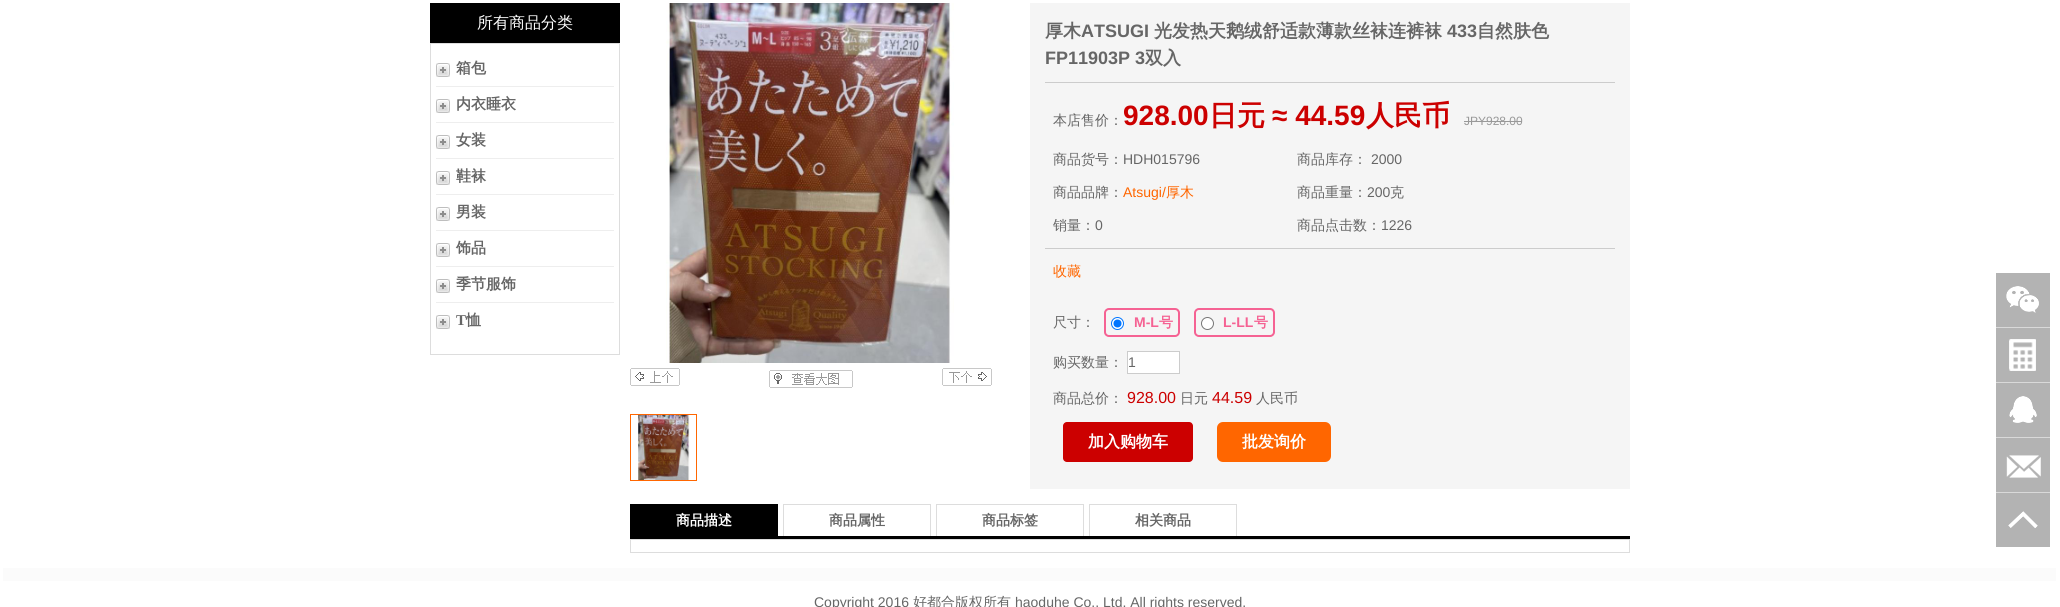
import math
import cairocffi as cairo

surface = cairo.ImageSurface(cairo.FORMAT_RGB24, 2060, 607)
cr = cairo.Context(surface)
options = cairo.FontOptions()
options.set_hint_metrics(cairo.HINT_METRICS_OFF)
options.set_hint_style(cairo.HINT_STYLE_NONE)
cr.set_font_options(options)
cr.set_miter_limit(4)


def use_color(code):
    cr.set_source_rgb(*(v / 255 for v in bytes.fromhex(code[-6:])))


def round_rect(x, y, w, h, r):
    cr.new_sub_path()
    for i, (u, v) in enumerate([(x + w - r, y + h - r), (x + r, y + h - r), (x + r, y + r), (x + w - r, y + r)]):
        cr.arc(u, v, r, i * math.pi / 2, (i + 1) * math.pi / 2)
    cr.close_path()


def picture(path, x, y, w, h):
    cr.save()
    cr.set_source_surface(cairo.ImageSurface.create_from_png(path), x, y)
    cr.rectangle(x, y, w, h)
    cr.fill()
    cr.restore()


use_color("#ffffff")
cr.paint()
use_color("#000000")
cr.rectangle(430, 3, 190, 40)
cr.fill()
cr.select_font_face("WenQuanYi Zen Hei Medium")
cr.set_font_size(16)
use_color("#ffffff")
cr.move_to(477, 28)
cr.show_text("所有商品分类")
cr.rectangle(430.5, 43.5, 189, 311)
use_color("#dddddd")
cr.set_line_width(1)
cr.stroke()
picture("img1.png", 436, 63, 14, 14)
cr.select_font_face("WenQuanYi Zen Hei", cairo.FONT_SLANT_NORMAL, cairo.FONT_WEIGHT_BOLD)
cr.set_font_size(15)
use_color("#666666")
cr.move_to(456, 73)
cr.show_text("箱包")
use_color("#eeeeee")
cr.rectangle(436, 86, 178, 1)
cr.fill()
picture("img1.png", 436, 99, 14, 14)
use_color("#666666")
cr.move_to(456, 109)
cr.show_text("内衣睡衣")
use_color("#eeeeee")
cr.rectangle(436, 122, 178, 1)
cr.fill()
picture("img1.png", 436, 135, 14, 14)
use_color("#666666")
cr.move_to(456, 145)
cr.show_text("女装")
use_color("#eeeeee")
cr.rectangle(436, 158, 178, 1)
cr.fill()
picture("img1.png", 436, 171, 14, 14)
use_color("#666666")
cr.move_to(456, 181)
cr.show_text("鞋袜")
use_color("#eeeeee")
cr.rectangle(436, 194, 178, 1)
cr.fill()
picture("img1.png", 436, 207, 14, 14)
use_color("#666666")
cr.move_to(456, 217)
cr.show_text("男装")
use_color("#eeeeee")
cr.rectangle(436, 230, 178, 1)
cr.fill()
picture("img1.png", 436, 243, 14, 14)
use_color("#666666")
cr.move_to(456, 253)
cr.show_text("饰品")
use_color("#eeeeee")
cr.rectangle(436, 266, 178, 1)
cr.fill()
picture("img1.png", 436, 279, 14, 14)
use_color("#666666")
cr.move_to(456, 289)
cr.show_text("季节服饰")
use_color("#eeeeee")
cr.rectangle(436, 302, 178, 1)
cr.fill()
picture("img1.png", 436, 315, 14, 14)
cr.select_font_face("Liberation Serif", cairo.FONT_SLANT_NORMAL, cairo.FONT_WEIGHT_BOLD)
use_color("#666666")
cr.move_to(456, 325)
cr.show_text("T")
cr.select_font_face("WenQuanYi Zen Hei", cairo.FONT_SLANT_NORMAL, cairo.FONT_WEIGHT_BOLD)
cr.move_to(466, 325)
cr.show_text("恤")
picture("img2.png", 666, 3, 288, 360)
picture("img3.png", 630, 368, 50, 18)
picture("img4.png", 769, 370, 84, 18)
picture("img5.png", 942, 368, 50, 18)
cr.rectangle(630.5, 414.5, 66, 66)
use_color("#ff6600")
cr.stroke()
picture("img6.png", 638, 415, 52, 65)
use_color("#f5f5f5")
cr.rectangle(1030, 3, 600, 486)
cr.fill()
use_color("#cccccc")
cr.rectangle(1045, 82, 570, 1)
cr.fill()
cr.set_font_size(18)
use_color("#666666")
cr.move_to(1045, 37)
cr.show_text("厚木")
cr.select_font_face("Liberation Sans", cairo.FONT_SLANT_NORMAL, cairo.FONT_WEIGHT_BOLD)
cr.move_to(1081, 37)
cr.show_text("ATSUGI")
cr.select_font_face("WenQuanYi Zen Hei", cairo.FONT_SLANT_NORMAL, cairo.FONT_WEIGHT_BOLD)
cr.move_to(1154, 37)
cr.show_text("光发热天鹅绒舒适款薄款丝袜连裤袜")
cr.select_font_face("Liberation Sans", cairo.FONT_SLANT_NORMAL, cairo.FONT_WEIGHT_BOLD)
cr.move_to(1447, 37)
cr.show_text("433")
cr.select_font_face("WenQuanYi Zen Hei", cairo.FONT_SLANT_NORMAL, cairo.FONT_WEIGHT_BOLD)
cr.move_to(1477, 37)
cr.show_text("自然肤色")
cr.select_font_face("Liberation Sans", cairo.FONT_SLANT_NORMAL, cairo.FONT_WEIGHT_BOLD)
cr.move_to(1045, 64)
cr.show_text("FP11903P 3")
cr.select_font_face("WenQuanYi Zen Hei", cairo.FONT_SLANT_NORMAL, cairo.FONT_WEIGHT_BOLD)
cr.move_to(1145, 64)
cr.show_text("双入")
use_color("#cccccc")
cr.rectangle(1045, 248, 570, 1)
cr.fill()
cr.select_font_face("WenQuanYi Zen Hei Medium")
cr.set_font_size(14)
use_color("#666666")
cr.move_to(1053, 125)
cr.show_text("本店售价：")
cr.select_font_face("Liberation Sans", cairo.FONT_SLANT_NORMAL, cairo.FONT_WEIGHT_BOLD)
cr.set_font_size(28)
use_color("#cc0000")
cr.move_to(1123, 125)
cr.show_text("928.00")
cr.select_font_face("WenQuanYi Zen Hei", cairo.FONT_SLANT_NORMAL, cairo.FONT_WEIGHT_BOLD)
cr.move_to(1209, 125)
cr.show_text("日元")
cr.select_font_face("Liberation Sans", cairo.FONT_SLANT_NORMAL, cairo.FONT_WEIGHT_BOLD)
cr.move_to(1272, 125)
cr.show_text("≈ 44.59")
cr.select_font_face("WenQuanYi Zen Hei", cairo.FONT_SLANT_NORMAL, cairo.FONT_WEIGHT_BOLD)
cr.move_to(1366, 125)
cr.show_text("人民币")
cr.select_font_face("Liberation Sans")
cr.set_font_size(12)
use_color("#999999")
cr.move_to(1464, 125)
cr.show_text("JPY928.00")
cr.rectangle(1464, 121, 58, 1)
cr.fill()
cr.select_font_face("WenQuanYi Zen Hei Medium")
cr.set_font_size(14)
use_color("#666666")
cr.move_to(1053, 164)
cr.show_text("商品货号：")
cr.select_font_face("Liberation Sans")
cr.move_to(1123, 164)
cr.show_text("HDH015796")
cr.select_font_face("WenQuanYi Zen Hei Medium")
cr.move_to(1297, 164)
cr.show_text("商品库存：")
cr.select_font_face("Liberation Sans")
cr.move_to(1371, 164)
cr.show_text("2000")
cr.select_font_face("WenQuanYi Zen Hei Medium")
cr.move_to(1053, 197)
cr.show_text("商品品牌：")
cr.select_font_face("Liberation Sans")
use_color("#ff6600")
cr.move_to(1123, 197)
cr.show_text("Atsugi/")
cr.select_font_face("WenQuanYi Zen Hei Medium")
cr.move_to(1166, 197)
cr.show_text("厚木")
use_color("#666666")
cr.move_to(1297, 197)
cr.show_text("商品重量：")
cr.select_font_face("Liberation Sans")
cr.move_to(1367, 197)
cr.show_text("200")
cr.select_font_face("WenQuanYi Zen Hei Medium")
cr.move_to(1390, 197)
cr.show_text("克")
cr.move_to(1053, 230)
cr.show_text("销量：")
cr.select_font_face("Liberation Sans")
cr.move_to(1095, 230)
cr.show_text("0")
cr.select_font_face("WenQuanYi Zen Hei Medium")
cr.move_to(1297, 230)
cr.show_text("商品点击数：")
cr.select_font_face("Liberation Sans")
cr.move_to(1381, 230)
cr.show_text("1226")
cr.select_font_face("WenQuanYi Zen Hei Medium")
use_color("#ff6600")
cr.move_to(1053, 276)
cr.show_text("收藏")
use_color("#666666")
cr.move_to(1053, 327)
cr.show_text("尺寸：")
round_rect(1105, 309, 74, 27, 4)
use_color("#f56293")
cr.set_line_width(2)
cr.stroke()
use_color("#ffffff")
cr.arc(1117.5, 323.5, 6, 0, 2 * math.pi)
cr.fill_preserve()
use_color("#0075ff")
cr.set_line_width(1)
cr.stroke()
cr.arc(1117.5, 323.5, 4, 0, 2 * math.pi)
cr.fill()
cr.select_font_face("Liberation Sans", cairo.FONT_SLANT_NORMAL, cairo.FONT_WEIGHT_BOLD)
use_color("#f56293")
cr.move_to(1134, 327)
cr.show_text("M-L")
cr.select_font_face("WenQuanYi Zen Hei", cairo.FONT_SLANT_NORMAL, cairo.FONT_WEIGHT_BOLD)
cr.move_to(1159, 327)
cr.show_text("号")
round_rect(1195, 309, 79, 27, 4)
cr.set_line_width(2)
cr.stroke()
use_color("#ffffff")
cr.arc(1207.5, 323.5, 6, 0, 2 * math.pi)
cr.fill_preserve()
use_color("#767676")
cr.set_line_width(1)
cr.stroke()
cr.select_font_face("Liberation Sans", cairo.FONT_SLANT_NORMAL, cairo.FONT_WEIGHT_BOLD)
use_color("#f56293")
cr.move_to(1223, 327)
cr.show_text("L-LL")
cr.select_font_face("WenQuanYi Zen Hei", cairo.FONT_SLANT_NORMAL, cairo.FONT_WEIGHT_BOLD)
cr.move_to(1254, 327)
cr.show_text("号")
cr.select_font_face("WenQuanYi Zen Hei Medium")
use_color("#666666")
cr.move_to(1053, 367)
cr.show_text("购买数量：")
use_color("#ffffff")
cr.rectangle(1127.5, 351.5, 52, 22)
cr.fill_preserve()
use_color("#cccccc")
cr.stroke()
cr.select_font_face("Liberation Sans")
use_color("#666666")
cr.move_to(1128, 367)
cr.show_text("1")
cr.select_font_face("WenQuanYi Zen Hei Medium")
cr.move_to(1053, 403)
cr.show_text("商品总价：")
cr.select_font_face("Liberation Sans")
cr.set_font_size(16)
use_color("#cc0000")
cr.move_to(1127, 403)
cr.show_text("928.00")
cr.select_font_face("WenQuanYi Zen Hei Medium")
cr.set_font_size(14)
use_color("#666666")
cr.move_to(1180, 403)
cr.show_text("日元")
cr.select_font_face("Liberation Sans")
cr.set_font_size(16)
use_color("#cc0000")
cr.move_to(1212, 403)
cr.show_text("44.59")
cr.select_font_face("WenQuanYi Zen Hei Medium")
cr.set_font_size(14)
use_color("#666666")
cr.move_to(1256, 403)
cr.show_text("人民币")
use_color("#cc0000")
round_rect(1063, 422, 130, 40, 4)
cr.fill()
cr.select_font_face("WenQuanYi Zen Hei", cairo.FONT_SLANT_NORMAL, cairo.FONT_WEIGHT_BOLD)
cr.set_font_size(16)
use_color("#ffffff")
cr.move_to(1088, 447)
cr.show_text("加入购物车")
use_color("#ff6600")
round_rect(1217, 422, 114, 40, 6)
cr.fill()
use_color("#ffffff")
cr.move_to(1242, 447)
cr.show_text("批发询价")
use_color("#000000")
cr.rectangle(630, 536, 1000, 3)
cr.fill()
cr.rectangle(630, 504, 148, 32)
cr.fill()
cr.set_font_size(14)
use_color("#ffffff")
cr.move_to(676, 525)
cr.show_text("商品描述")
use_color("#dddddd")
cr.rectangle(783, 504, 148, 1)
cr.fill()
cr.rectangle(930, 504, 1, 32)
cr.fill()
cr.rectangle(783, 504, 1, 32)
cr.fill()
use_color("#666666")
cr.move_to(829, 525)
cr.show_text("商品属性")
use_color("#dddddd")
cr.rectangle(936, 504, 148, 1)
cr.fill()
cr.rectangle(1083, 504, 1, 32)
cr.fill()
cr.rectangle(936, 504, 1, 32)
cr.fill()
use_color("#666666")
cr.move_to(982, 525)
cr.show_text("商品标签")
use_color("#dddddd")
cr.rectangle(1089, 504, 148, 1)
cr.fill()
cr.rectangle(1236, 504, 1, 32)
cr.fill()
cr.rectangle(1089, 504, 1, 32)
cr.fill()
use_color("#666666")
cr.move_to(1135, 525)
cr.show_text("相关商品")
cr.rectangle(630.5, 539.5, 999, 13)
use_color("#dddddd")
cr.stroke()
use_color("#b3b3b3")
cr.rectangle(1996, 273, 54, 54)
cr.fill()
use_color("#d9d9d9")
cr.rectangle(1996, 327, 54, 1)
cr.fill()
picture("img7.png", 2006, 286, 33, 27)
use_color("#b3b3b3")
cr.rectangle(1996, 328, 54, 54)
cr.fill()
use_color("#d9d9d9")
cr.rectangle(1996, 382, 54, 1)
cr.fill()
picture("img8.png", 2009, 339, 27, 32)
use_color("#b3b3b3")
cr.rectangle(1996, 383, 54, 54)
cr.fill()
use_color("#d9d9d9")
cr.rectangle(1996, 437, 54, 1)
cr.fill()
picture("img9.png", 2009, 396, 28, 27)
use_color("#b3b3b3")
cr.rectangle(1996, 438, 54, 54)
cr.fill()
use_color("#d9d9d9")
cr.rectangle(1996, 492, 54, 1)
cr.fill()
picture("img10.png", 2006, 455, 35, 23)
use_color("#b3b3b3")
cr.rectangle(1996, 493, 54, 54)
cr.fill()
picture("img11.png", 2008, 511, 30, 17)
use_color("#fbfbfb")
cr.rectangle(3, 568, 2053, 13)
cr.fill()
cr.select_font_face("Liberation Sans")
use_color("#666666")
cr.move_to(814, 607)
cr.show_text("Copyright 2016")
cr.select_font_face("WenQuanYi Zen Hei Medium")
cr.move_to(913, 607)
cr.show_text("好都合版权所有")
cr.select_font_face("Liberation Sans")
cr.move_to(1015, 607)
cr.show_text("haoduhe Co., Ltd. All rights reserved.")
surface.write_to_png("result.png")
